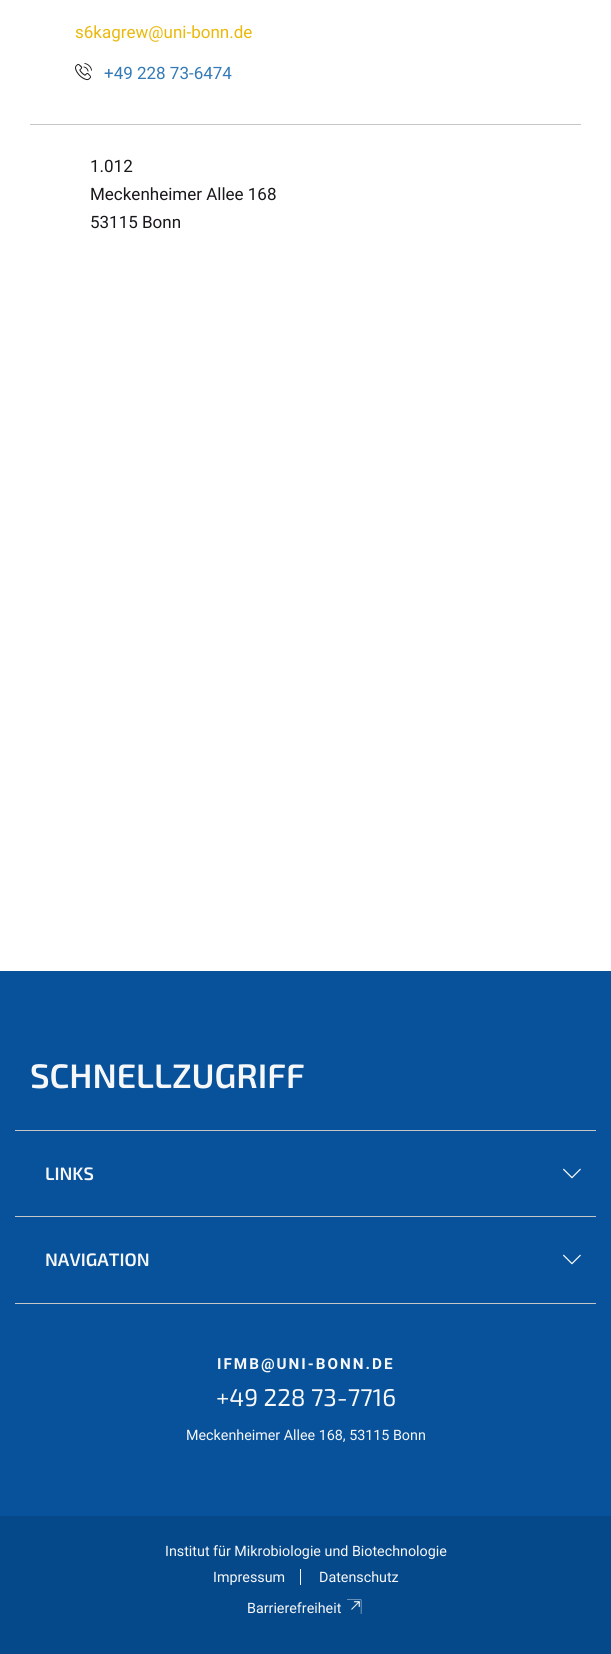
import math
import cairocffi as cairo

surface = cairo.ImageSurface(cairo.FORMAT_RGB24, 611, 1654)
cr = cairo.Context(surface)
options = cairo.FontOptions()
options.set_hint_metrics(cairo.HINT_METRICS_OFF)
options.set_hint_style(cairo.HINT_STYLE_NONE)
cr.set_font_options(options)
cr.set_miter_limit(4)


def use_color(code):
    cr.set_source_rgb(*(v / 255 for v in bytes.fromhex(code[-6:])))


def spaced_text(x, y, s, letter, word):
    cr.move_to(x, y)
    for ch in s:
        cr.show_text(ch)
        cr.rel_move_to(letter + word * (ch == ' '), 0)


def picture(path, x, y, w, h):
    cr.save()
    cr.set_source_surface(cairo.ImageSurface.create_from_png(path), x, y)
    cr.rectangle(x, y, w, h)
    cr.fill()
    cr.restore()


use_color("#ffffff")
cr.paint()
cr.select_font_face("Roboto")
cr.set_font_size(17)
use_color("#eab90c")
cr.move_to(75, 38)
cr.show_text("s6kagrew@uni-bonn.de")
picture("img1.png", 75, 63, 17, 18)
use_color("#337ab7")
cr.move_to(104, 79)
cr.show_text("+49 228 73-6474")
use_color("#c6c6c8")
cr.rectangle(30, 124, 551, 1)
cr.fill()
use_color("#1a181b")
cr.move_to(90, 172)
cr.show_text("1.012")
cr.move_to(90, 200)
cr.show_text("Meckenheimer Allee 168")
cr.move_to(90, 228)
cr.show_text("53115 Bonn")
use_color("#07529a")
cr.rectangle(0, 971, 611, 545)
cr.fill()
cr.select_font_face("Exo 2 SemiBold")
cr.set_font_size(34)
use_color("#f6f7f9")
cr.move_to(30, 1088)
cr.show_text("SCHNELLZUGRIFF")
use_color("#c6c6c8")
cr.rectangle(15, 1130, 581, 1)
cr.fill()
cr.set_font_size(18)
use_color("#f6f7f9")
cr.move_to(45, 1180)
cr.show_text("LINKS")
picture("img2.png", 563, 1168, 18, 11)
use_color("#c6c6c8")
cr.rectangle(15, 1216, 581, 1)
cr.fill()
cr.rectangle(15, 1303, 581, 1)
cr.fill()
use_color("#f6f7f9")
cr.move_to(45, 1266)
cr.show_text("NAVIGATION")
picture("img2.png", 563, 1254, 18, 11)
cr.select_font_face("Roboto", cairo.FONT_SLANT_NORMAL, cairo.FONT_WEIGHT_BOLD)
cr.set_font_size(15.25)
spaced_text(217, 1369, "IFMB@UNI-BONN.DE", 2, 0)
cr.select_font_face("Exo 2")
cr.set_font_size(24.25)
cr.move_to(216, 1406)
cr.show_text("+49 228 73-7716")
cr.select_font_face("Roboto")
cr.set_font_size(14.3)
cr.move_to(186, 1440)
cr.show_text("Meckenheimer Allee 168, 53115 Bonn")
use_color("#06498a")
cr.rectangle(0, 1516, 611, 138)
cr.fill()
use_color("#f6f7f9")
cr.move_to(165, 1556)
cr.show_text("Institut für Mikrobiologie und Biotechnologie")
cr.move_to(213, 1582)
cr.show_text("Impressum")
cr.rectangle(300, 1569, 1, 16)
cr.fill()
cr.move_to(319, 1582)
cr.show_text("Datenschutz")
cr.move_to(247, 1613)
cr.show_text("Barrierefreiheit")
picture("img3.png", 347, 1599, 15, 15)
surface.write_to_png("result.png")
